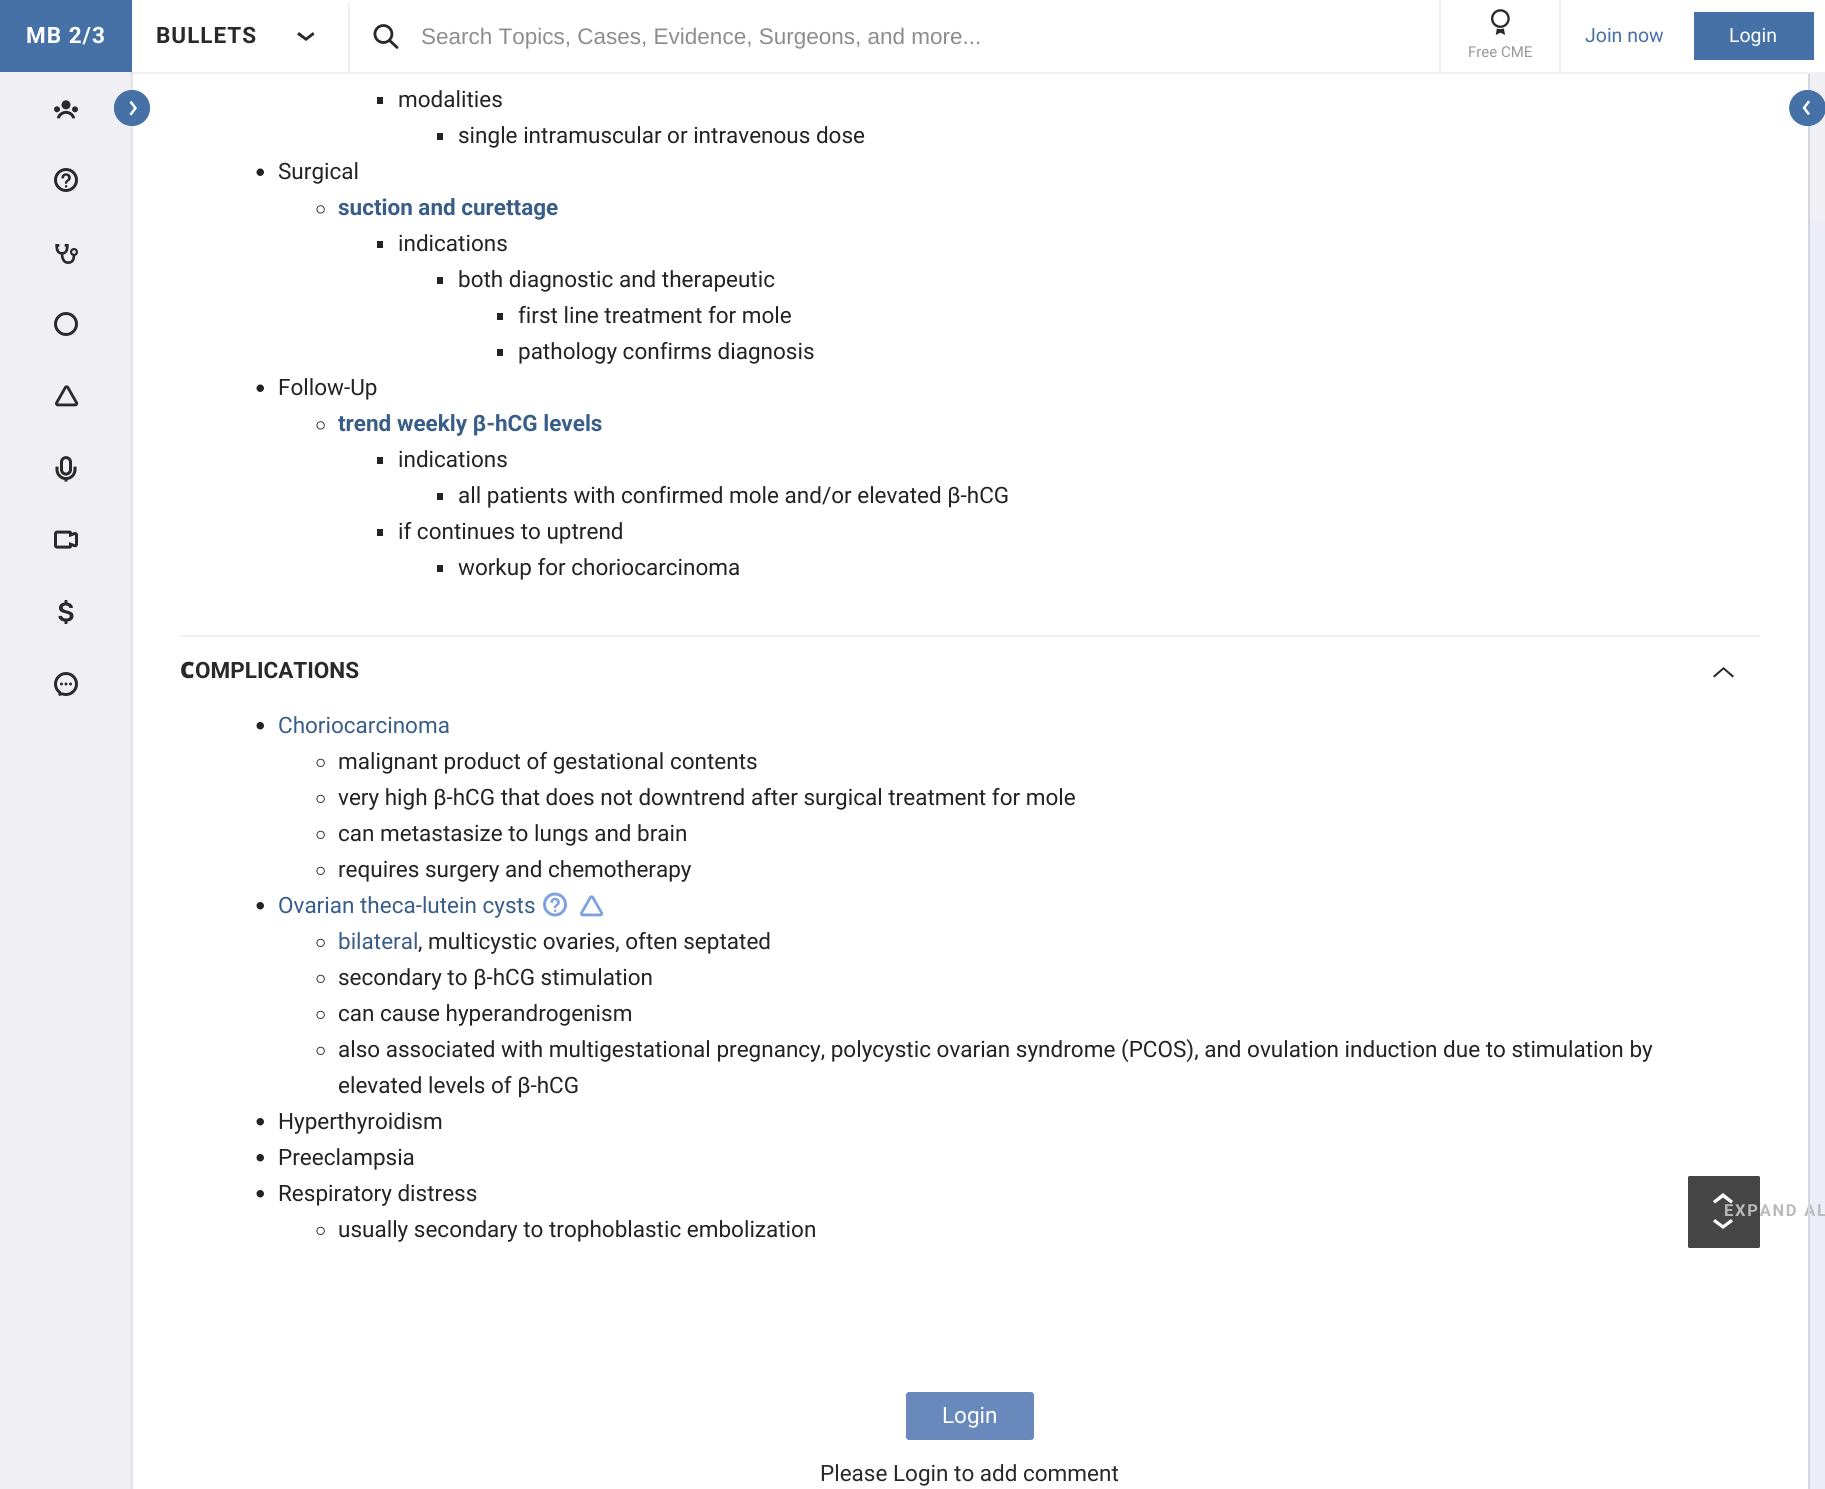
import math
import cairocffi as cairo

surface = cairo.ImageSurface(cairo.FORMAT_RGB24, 1825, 1489)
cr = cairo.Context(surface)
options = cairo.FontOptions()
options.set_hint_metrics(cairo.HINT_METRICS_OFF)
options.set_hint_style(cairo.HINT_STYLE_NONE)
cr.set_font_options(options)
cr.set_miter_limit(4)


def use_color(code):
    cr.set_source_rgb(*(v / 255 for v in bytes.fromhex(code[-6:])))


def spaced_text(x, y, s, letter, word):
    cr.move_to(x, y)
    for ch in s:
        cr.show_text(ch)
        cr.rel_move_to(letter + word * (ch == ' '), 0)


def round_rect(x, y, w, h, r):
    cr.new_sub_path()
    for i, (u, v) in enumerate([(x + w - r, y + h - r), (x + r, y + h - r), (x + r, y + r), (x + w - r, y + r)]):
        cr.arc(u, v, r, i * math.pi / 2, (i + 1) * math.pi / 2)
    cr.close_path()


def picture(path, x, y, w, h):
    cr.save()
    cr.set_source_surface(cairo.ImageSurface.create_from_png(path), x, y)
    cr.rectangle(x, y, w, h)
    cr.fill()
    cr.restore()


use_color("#efeff4")
cr.paint()
use_color("#dedee2")
cr.rectangle(131, 72, 1, 1417)
cr.fill()
use_color("#ffffff")
cr.rectangle(132, 0, 1693, 72)
cr.fill()
cr.rectangle(133, 74, 1675, 1415)
cr.fill()
use_color("#464646")
round_rect(1688, 1176, 72, 72, 1.5)
cr.fill()
use_color("#ededf8")
cr.rectangle(1810, 222, 15, 1267)
cr.fill()
cr.select_font_face("Roboto", cairo.FONT_SLANT_NORMAL, cairo.FONT_WEIGHT_BOLD)
cr.set_font_size(16.5)
use_color("#bababb")
spaced_text(1724, 1216, "EXPAND AL", 1.75, 0)
use_color("#d3d8e0")
cr.rectangle(1808, 72, 2, 1417)
cr.fill()
use_color("#ebebeb")
cr.rectangle(132, 72, 1, 1417)
cr.fill()
use_color("#efeff4")
cr.rectangle(131, 72, 1679, 2)
cr.fill()
use_color("#dedee2")
cr.rectangle(131, 72, 2, 2)
cr.fill()
use_color("#4571a7")
cr.rectangle(0, 0, 132, 72)
cr.fill()
cr.set_font_size(22.5)
use_color("#ffffff")
spaced_text(26, 43, "MB 2/3", 1, 0)
use_color("#292929")
spaced_text(156, 43, "BULLETS", 1, 0)
cr.new_path()
cr.move_to(299, 32)
cr.line_to(297, 34.5)
cr.line_to(306, 41)
cr.line_to(314.5, 34.5)
cr.line_to(313, 32)
cr.line_to(306, 37.5)
cr.close_path()
cr.fill()
use_color("#efeff4")
cr.rectangle(348, 2, 2, 70)
cr.fill()
picture("img1.png", 373, 24, 26, 25)
cr.select_font_face("Liberation Sans")
use_color("#8d8d8d")
cr.move_to(421, 44)
cr.show_text("Search Topics, Cases, Evidence, Surgeons, and more...")
cr.select_font_face("Roboto")
cr.set_font_size(19.5)
use_color("#4571a7")
cr.move_to(1585, 42)
cr.show_text("Join now")
cr.rectangle(1694, 12, 120, 48)
cr.fill()
use_color("#ffffff")
cr.move_to(1729, 42)
cr.show_text("Login")
use_color("#efeff4")
cr.rectangle(1439, 0, 2, 72)
cr.fill()
cr.rectangle(1559, 0, 2, 72)
cr.fill()
picture("img2.png", 1491, 9, 19, 26)
cr.set_font_size(15)
use_color("#999999")
cr.move_to(1468, 57)
cr.show_text("Free CME")
picture("img3.png", 54, 100, 24, 19)
picture("img4.png", 54, 168, 24, 24)
picture("img5.png", 55, 244, 23, 20)
picture("img6.png", 54, 312, 24, 24)
picture("img7.png", 55, 385, 24, 22)
picture("img8.png", 55, 456, 22, 26)
picture("img9.png", 54, 530, 24, 19)
picture("img10.png", 58, 600, 16, 24)
picture("img11.png", 54, 672, 24, 24)
use_color("#4571a7")
cr.new_path()
cr.move_to(114, 108)
cr.curve_to(114, 98, 122, 90, 132, 90)
cr.curve_to(142, 90, 150, 98, 150, 108)
cr.curve_to(150, 118, 142, 126, 132, 126)
cr.curve_to(122, 126, 114, 118, 114, 108)
cr.close_path()
cr.fill()
cr.new_path()
cr.move_to(115, 108)
cr.curve_to(115, 98.5, 122.5, 91, 132, 91)
cr.curve_to(141.5, 91, 149, 98.5, 149, 108)
cr.curve_to(149, 117.5, 141.5, 125, 132, 125)
cr.curve_to(122.5, 125, 115, 117.5, 115, 108)
cr.close_path()
cr.set_line_width(1.5)
cr.stroke()
picture("img12.png", 129, 100, 8, 16)
cr.new_path()
cr.move_to(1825.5, 108)
cr.curve_to(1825.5, 118, 1817.5, 126, 1807.5, 126)
cr.curve_to(1797.5, 126, 1789.5, 118, 1789.5, 108)
cr.curve_to(1789.5, 98, 1797.5, 90, 1807.5, 90)
cr.curve_to(1817.5, 90, 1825.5, 98, 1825.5, 108)
cr.close_path()
cr.fill()
cr.new_path()
cr.move_to(1825, 108)
cr.curve_to(1825, 117.5, 1817, 125, 1807.5, 125)
cr.curve_to(1798, 125, 1790, 117.5, 1790, 108)
cr.curve_to(1790, 98.5, 1798, 91, 1807.5, 91)
cr.curve_to(1817, 91, 1825, 98.5, 1825, 108)
cr.close_path()
cr.stroke()
picture("img13.png", 1802, 100, 8, 16)
use_color("#232323")
cr.rectangle(377, 97, 6, 7)
cr.fill()
cr.set_font_size(22.5)
cr.move_to(398, 107)
cr.show_text("modalities")
cr.rectangle(437, 133, 6, 7)
cr.fill()
cr.move_to(458, 143)
cr.show_text("single intramuscular or intravenous dose")
picture("img14.png", 256, 168, 8, 8)
cr.move_to(278, 179)
cr.show_text("Surgical")
picture("img15.png", 316, 205, 9, 9)
cr.select_font_face("Roboto", cairo.FONT_SLANT_NORMAL, cairo.FONT_WEIGHT_BOLD)
use_color("#395d89")
cr.move_to(338, 215)
cr.show_text("suction and curettage")
use_color("#232323")
cr.rectangle(377, 241, 6, 7)
cr.fill()
cr.select_font_face("Roboto")
cr.move_to(398, 251)
cr.show_text("indications")
cr.rectangle(437, 277, 6, 7)
cr.fill()
cr.move_to(458, 287)
cr.show_text("both diagnostic and therapeutic")
cr.rectangle(497, 313, 6, 7)
cr.fill()
cr.move_to(518, 323)
cr.show_text("first line treatment for mole")
cr.rectangle(497, 349, 6, 7)
cr.fill()
cr.move_to(518, 359)
cr.show_text("pathology confirms diagnosis")
picture("img14.png", 256, 384, 8, 8)
cr.move_to(278, 395)
cr.show_text("Follow-Up")
picture("img15.png", 316, 421, 9, 9)
cr.select_font_face("Roboto", cairo.FONT_SLANT_NORMAL, cairo.FONT_WEIGHT_BOLD)
use_color("#395d89")
cr.move_to(338, 431)
cr.show_text("trend weekly β-hCG levels")
use_color("#232323")
cr.rectangle(377, 457, 6, 7)
cr.fill()
cr.select_font_face("Roboto")
cr.move_to(398, 467)
cr.show_text("indications")
cr.rectangle(437, 493, 6, 7)
cr.fill()
cr.move_to(458, 503)
cr.show_text("all patients with confirmed mole and/or elevated β-hCG")
cr.rectangle(377, 529, 6, 7)
cr.fill()
cr.move_to(398, 539)
cr.show_text("if continues to uptrend")
cr.rectangle(437, 565, 6, 7)
cr.fill()
cr.move_to(458, 575)
cr.show_text("workup for choriocarcinoma")
use_color("#efeff4")
cr.rectangle(180, 635, 1580, 2)
cr.fill()
cr.select_font_face("Noto Sans Black")
use_color("#292929")
cr.move_to(180, 678)
cr.show_text("C")
cr.select_font_face("Roboto", cairo.FONT_SLANT_NORMAL, cairo.FONT_WEIGHT_BOLD)
cr.move_to(195, 678)
cr.show_text("OMPLICATIONS")
cr.new_path()
cr.move_to(1732.5, 677.5)
cr.line_to(1734, 676)
cr.line_to(1723.5, 667)
cr.line_to(1713, 676)
cr.line_to(1714.5, 677.5)
cr.line_to(1723.5, 669.5)
cr.close_path()
cr.fill()
picture("img16.png", 256, 722, 8, 8)
cr.select_font_face("Roboto")
use_color("#395d89")
cr.move_to(278, 733)
cr.show_text("Choriocarcinoma")
picture("img17.png", 316, 758, 9, 9)
use_color("#232323")
cr.move_to(338, 769)
cr.show_text("malignant product of gestational contents")
picture("img17.png", 316, 794, 9, 9)
cr.move_to(338, 805)
cr.show_text("very high β-hCG that does not downtrend after surgical treatment for mole")
picture("img17.png", 316, 830, 9, 9)
cr.move_to(338, 841)
cr.show_text("can metastasize to lungs and brain")
picture("img17.png", 316, 866, 9, 9)
cr.move_to(338, 877)
cr.show_text("requires surgery and chemotherapy")
picture("img16.png", 256, 902, 8, 8)
use_color("#395d89")
cr.move_to(278, 913)
cr.show_text("Ovarian theca-lutein cysts")
picture("img18.png", 543, 892, 24, 25)
picture("img19.png", 580, 895, 24, 22)
picture("img17.png", 316, 938, 9, 9)
cr.move_to(338, 949)
cr.show_text("bilateral")
use_color("#232323")
cr.move_to(418, 949)
cr.show_text(", multicystic ovaries, often septated")
picture("img17.png", 316, 974, 9, 9)
cr.move_to(338, 985)
cr.show_text("secondary to β-hCG stimulation")
picture("img17.png", 316, 1010, 9, 9)
cr.move_to(338, 1021)
cr.show_text("can cause hyperandrogenism")
picture("img17.png", 316, 1046, 9, 9)
cr.move_to(338, 1057)
cr.show_text("also associated with multigestational pregnancy, polycystic ovarian syndrome (PCOS), and ovulation induction due to stimulation by")
cr.move_to(338, 1093)
cr.show_text("elevated levels of β-hCG")
picture("img16.png", 256, 1118, 8, 8)
cr.move_to(278, 1129)
cr.show_text("Hyperthyroidism")
picture("img16.png", 256, 1154, 8, 8)
cr.move_to(278, 1165)
cr.show_text("Preeclampsia")
picture("img16.png", 256, 1190, 8, 8)
cr.move_to(278, 1201)
cr.show_text("Respiratory distress")
picture("img17.png", 316, 1226, 9, 9)
cr.move_to(338, 1237)
cr.show_text("usually secondary to trophoblastic embolization")
use_color("#6989bd")
round_rect(906, 1392, 128, 48, 3)
cr.fill()
use_color("#ffffff")
cr.move_to(942, 1423)
cr.show_text("Login")
use_color("#292929")
cr.move_to(820, 1481)
cr.show_text("Please Login to add comment")
use_color("#ffffff")
cr.new_path()
cr.move_to(1723, 1193)
cr.line_to(1713, 1201)
cr.line_to(1715, 1203.5)
cr.line_to(1723, 1197.5)
cr.line_to(1731, 1203.5)
cr.line_to(1733, 1201)
cr.close_path()
cr.move_to(1715, 1219)
cr.line_to(1713, 1221.5)
cr.line_to(1723, 1229)
cr.line_to(1733, 1221.5)
cr.line_to(1731, 1219)
cr.line_to(1723, 1225)
cr.close_path()
cr.fill()
surface.write_to_png("result.png")
